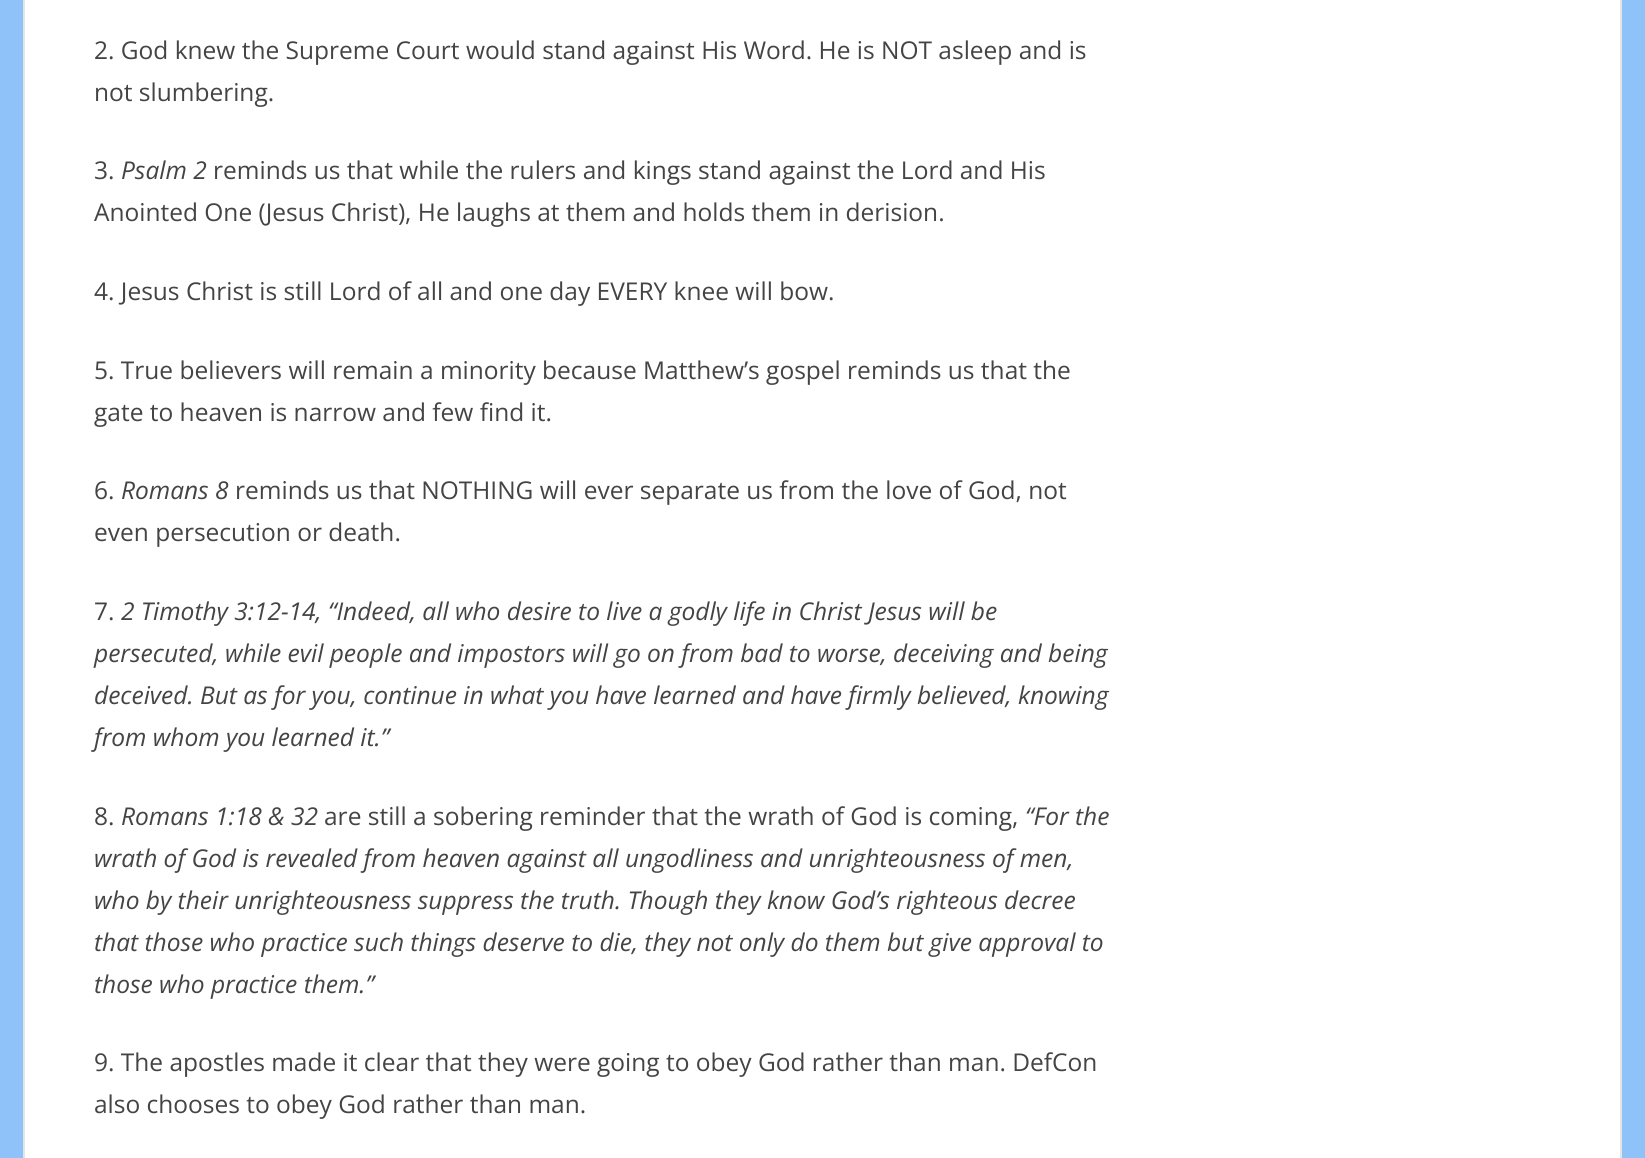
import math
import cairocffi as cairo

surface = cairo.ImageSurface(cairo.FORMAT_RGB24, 1645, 1158)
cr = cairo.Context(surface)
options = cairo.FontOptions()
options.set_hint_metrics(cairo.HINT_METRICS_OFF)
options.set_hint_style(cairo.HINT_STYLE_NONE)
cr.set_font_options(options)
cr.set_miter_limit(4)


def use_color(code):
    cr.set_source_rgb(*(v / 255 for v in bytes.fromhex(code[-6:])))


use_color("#8fc2f9")
cr.paint()
use_color("#ffffff")
cr.rectangle(24, -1, 1597, 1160)
cr.fill_preserve()
use_color("#e5e5e5")
cr.stroke()
cr.select_font_face("Open Sans")
cr.set_font_size(24.5)
use_color("#444444")
cr.move_to(94, 59)
cr.show_text("2. God knew the Supreme Court would stand against His Word. He is NOT asleep and is")
cr.move_to(94, 101)
cr.show_text("not slumbering.")
cr.move_to(94, 179)
cr.show_text("3.")
cr.select_font_face("Open Sans", cairo.FONT_SLANT_ITALIC)
cr.move_to(121, 179)
cr.show_text("Psalm 2")
cr.select_font_face("Open Sans")
cr.move_to(213, 179)
cr.show_text("reminds us that while the rulers and kings stand against the Lord and His")
cr.move_to(94, 221)
cr.show_text("Anointed One (Jesus Christ), He laughs at them and holds them in derision.")
cr.move_to(94, 300)
cr.show_text("4. Jesus Christ is still Lord of all and one day EVERY knee will bow.")
cr.move_to(94, 379)
cr.show_text("5. True believers will remain a minority because Matthew’s gospel reminds us that the")
cr.move_to(94, 421)
cr.show_text("gate to heaven is narrow and few find it.")
cr.move_to(94, 499)
cr.show_text("6.")
cr.select_font_face("Open Sans", cairo.FONT_SLANT_ITALIC)
cr.move_to(121, 499)
cr.show_text("Romans 8")
cr.select_font_face("Open Sans")
cr.move_to(235, 499)
cr.show_text("reminds us that NOTHING will ever separate us from the love of God, not")
cr.move_to(94, 541)
cr.show_text("even persecution or death.")
cr.move_to(94, 620)
cr.show_text("7.")
cr.select_font_face("Open Sans", cairo.FONT_SLANT_ITALIC)
cr.move_to(121, 620)
cr.show_text("2 Timothy 3:12-14, “Indeed, all who desire to live a godly life in Christ Jesus will be")
cr.move_to(94, 662)
cr.show_text("persecuted, while evil people and impostors will go on from bad to worse, deceiving and being")
cr.move_to(94, 704)
cr.show_text("deceived. But as for you, continue in what you have learned and have firmly believed, knowing")
cr.move_to(94, 746)
cr.show_text("from whom you learned it.”")
cr.select_font_face("Open Sans")
cr.move_to(94, 825)
cr.show_text("8.")
cr.select_font_face("Open Sans", cairo.FONT_SLANT_ITALIC)
cr.move_to(121, 825)
cr.show_text("Romans 1:18 & 32")
cr.select_font_face("Open Sans")
cr.move_to(324, 825)
cr.show_text("are still a sobering reminder that the wrath of God is coming,")
cr.select_font_face("Open Sans", cairo.FONT_SLANT_ITALIC)
cr.move_to(1025, 825)
cr.show_text("“For the")
cr.move_to(94, 867)
cr.show_text("wrath of God is revealed from heaven against all ungodliness and unrighteousness of men,")
cr.move_to(94, 909)
cr.show_text("who by their unrighteousness suppress the truth. Though they know God’s righteous decree")
cr.move_to(94, 951)
cr.show_text("that those who practice such things deserve to die, they not only do them but give approval to")
cr.move_to(94, 993)
cr.show_text("those who practice them.”")
cr.select_font_face("Open Sans")
cr.move_to(94, 1071)
cr.show_text("9. The apostles made it clear that they were going to obey God rather than man. DefCon")
cr.move_to(94, 1113)
cr.show_text("also chooses to obey God rather than man.")
surface.write_to_png("result.png")
